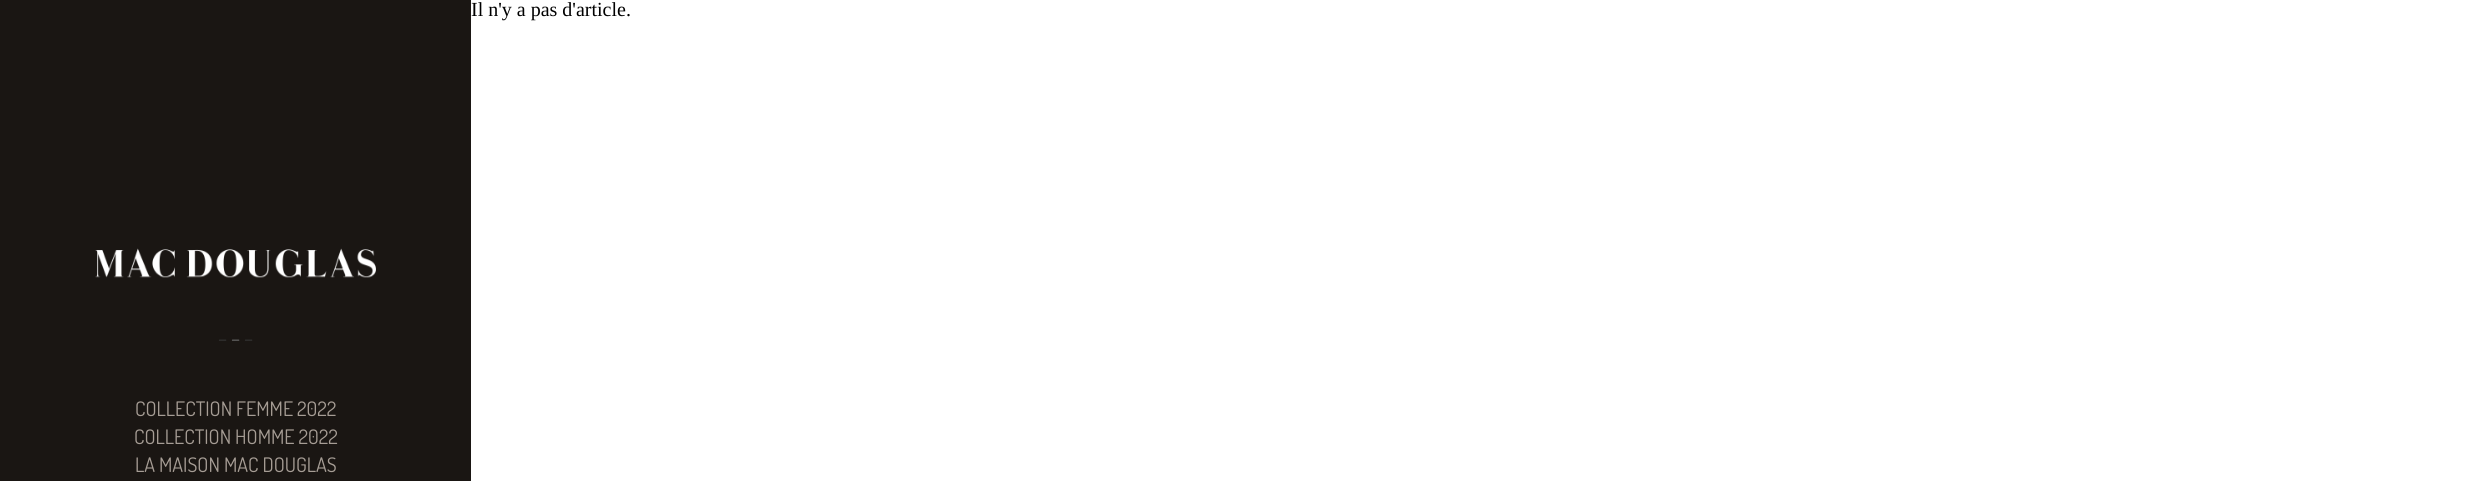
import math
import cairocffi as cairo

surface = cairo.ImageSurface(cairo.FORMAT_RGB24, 2483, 481)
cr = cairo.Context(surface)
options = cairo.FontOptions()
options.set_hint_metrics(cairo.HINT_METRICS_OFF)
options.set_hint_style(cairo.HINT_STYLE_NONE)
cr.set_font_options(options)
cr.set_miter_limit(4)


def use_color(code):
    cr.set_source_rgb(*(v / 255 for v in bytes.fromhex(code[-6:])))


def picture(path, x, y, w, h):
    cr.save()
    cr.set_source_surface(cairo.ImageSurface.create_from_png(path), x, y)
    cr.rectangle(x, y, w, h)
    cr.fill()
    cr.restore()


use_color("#ffffff")
cr.paint()
cr.select_font_face("Liberation Serif")
cr.set_font_size(20)
use_color("#000000")
cr.move_to(471, 16)
cr.show_text("Il n'y a pas d'article.")
use_color("#1a1613")
cr.rectangle(0, 0, 471, 481)
cr.fill()
picture("img1.png", 95, 248, 281, 30)
cr.select_font_face("Dosis")
use_color("#333333")
cr.move_to(218, 345)
cr.show_text("–")
use_color("#666666")
cr.move_to(231, 345)
cr.show_text("–")
use_color("#333333")
cr.move_to(244, 345)
cr.show_text("–")
use_color("#a69d95")
cr.move_to(135, 416)
cr.show_text("COLLECTION FEMME 2022")
cr.move_to(134, 444)
cr.show_text("COLLECTION HOMME 2022")
cr.move_to(135, 472)
cr.show_text("LA MAISON MAC DOUGLAS")
surface.write_to_png("result.png")
